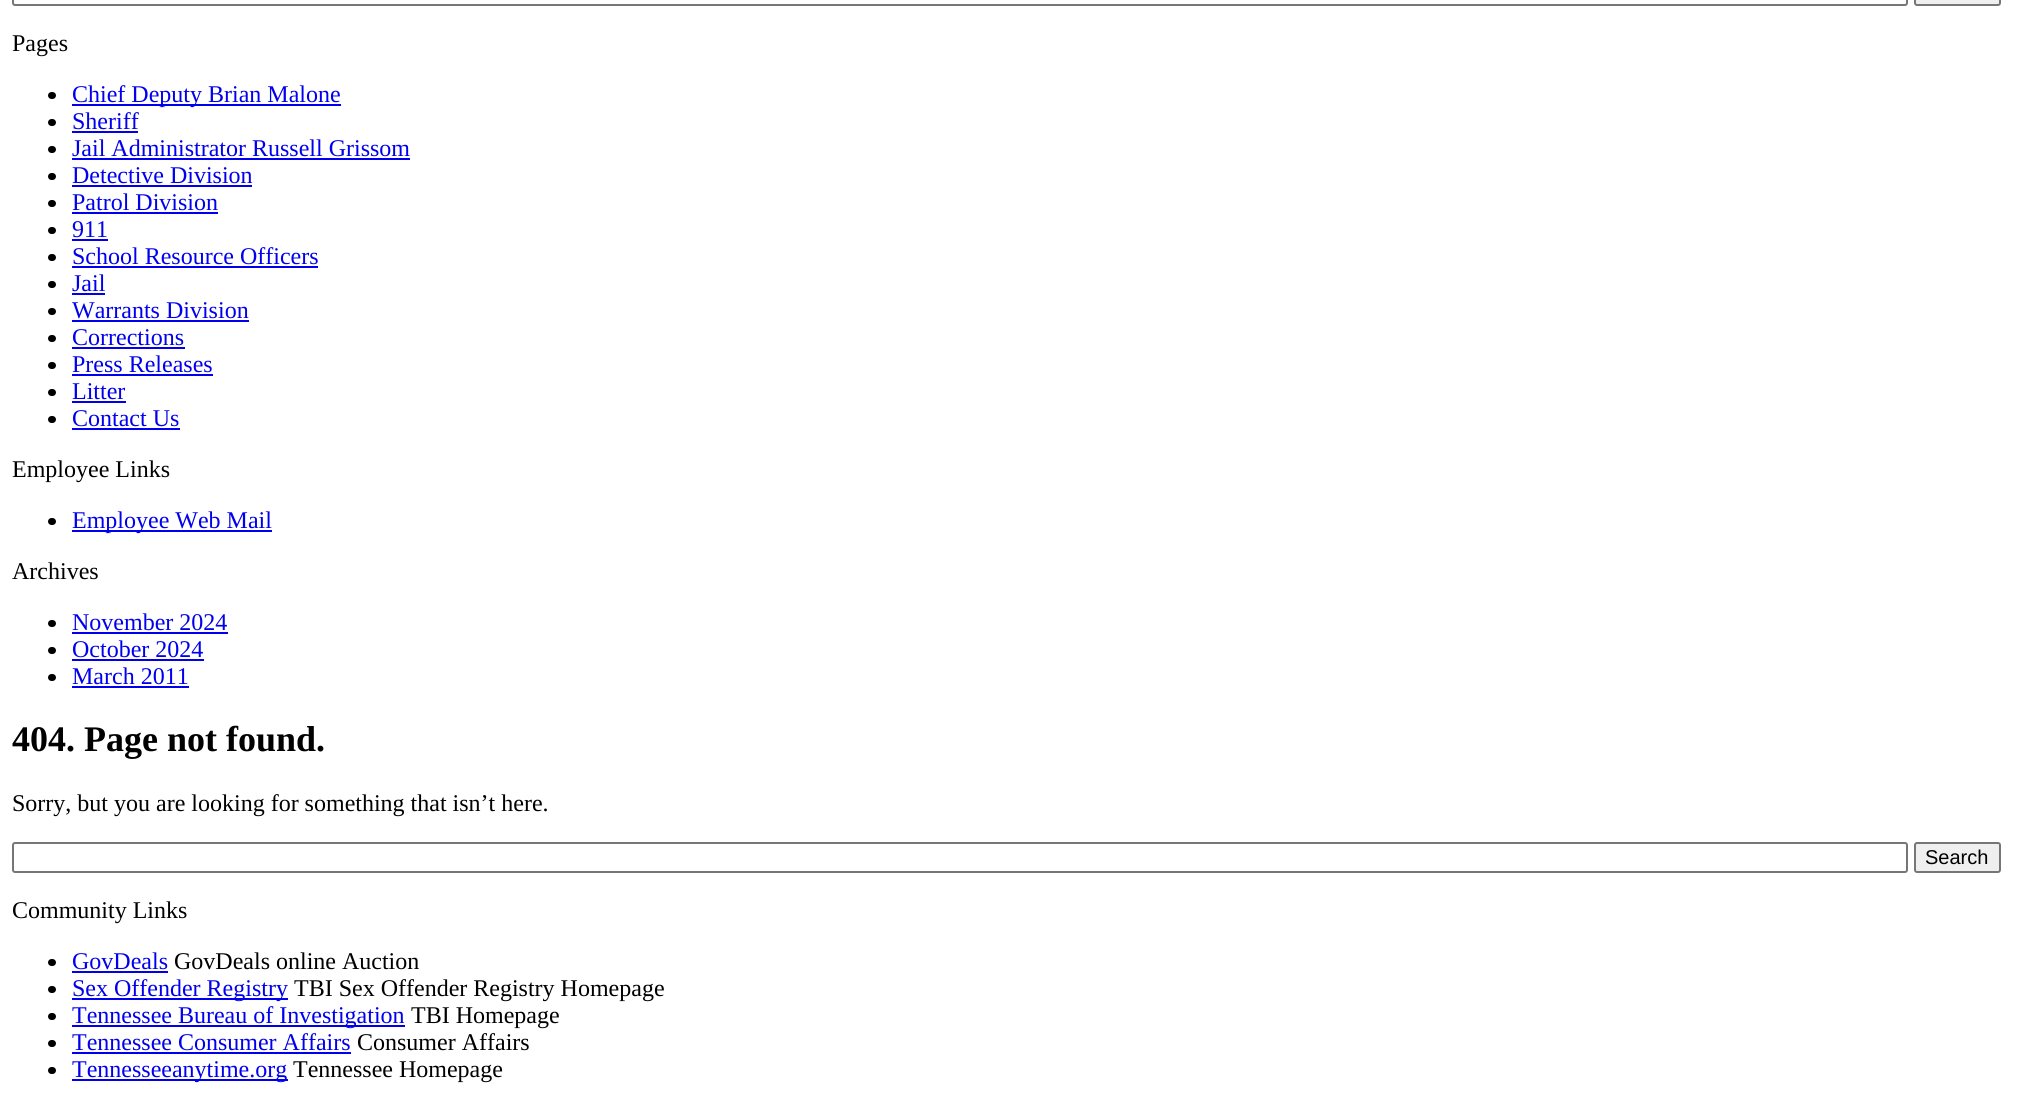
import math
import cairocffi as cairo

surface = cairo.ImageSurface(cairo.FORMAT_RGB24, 2018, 1093)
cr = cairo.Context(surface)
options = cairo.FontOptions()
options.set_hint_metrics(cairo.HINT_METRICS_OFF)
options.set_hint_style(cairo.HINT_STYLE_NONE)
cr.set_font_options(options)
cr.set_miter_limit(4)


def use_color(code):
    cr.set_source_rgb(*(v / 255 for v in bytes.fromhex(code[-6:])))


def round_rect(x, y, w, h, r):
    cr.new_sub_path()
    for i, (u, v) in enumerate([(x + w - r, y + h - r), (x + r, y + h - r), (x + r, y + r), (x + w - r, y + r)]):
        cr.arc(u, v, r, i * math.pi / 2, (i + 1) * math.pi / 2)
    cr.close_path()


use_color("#ffffff")
cr.paint()
round_rect(13, -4, 1894, 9, 2)
use_color("#767676")
cr.stroke()
use_color("#efefef")
round_rect(1915, -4, 85, 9, 2)
cr.fill_preserve()
use_color("#767676")
cr.stroke()
cr.select_font_face("Liberation Serif")
cr.set_font_size(24)
use_color("#000000")
cr.move_to(12, 51)
cr.show_text("Pages")
round_rect(48, 92, 8, 7, 3.5)
cr.fill()
use_color("#0000ee")
cr.rectangle(72, 104, 269, 2)
cr.fill()
cr.move_to(72, 102)
cr.show_text("Chief Deputy Brian Malone")
use_color("#000000")
round_rect(48, 119, 8, 7, 3.5)
cr.fill()
use_color("#0000ee")
cr.move_to(72, 129)
cr.show_text("Sheriff")
cr.rectangle(72, 131, 66, 2)
cr.fill()
use_color("#000000")
round_rect(48, 146, 8, 7, 3.5)
cr.fill()
use_color("#0000ee")
cr.move_to(72, 156)
cr.show_text("Jail Administrator Russell Grissom")
cr.rectangle(72, 158, 338, 2)
cr.fill()
use_color("#000000")
round_rect(48, 173, 8, 7, 3.5)
cr.fill()
use_color("#0000ee")
cr.move_to(72, 183)
cr.show_text("Detective Division")
cr.rectangle(72, 185, 180, 2)
cr.fill()
use_color("#000000")
round_rect(48, 200, 8, 7, 3.5)
cr.fill()
use_color("#0000ee")
cr.move_to(72, 210)
cr.show_text("Patrol Division")
cr.rectangle(72, 212, 146, 2)
cr.fill()
use_color("#000000")
round_rect(48, 227, 8, 7, 3.5)
cr.fill()
use_color("#0000ee")
cr.move_to(72, 237)
cr.show_text("911")
cr.rectangle(72, 239, 36, 2)
cr.fill()
use_color("#000000")
round_rect(48, 254, 8, 7, 3.5)
cr.fill()
use_color("#0000ee")
cr.move_to(72, 264)
cr.show_text("School Resource Officers")
cr.rectangle(72, 266, 246, 2)
cr.fill()
use_color("#000000")
round_rect(48, 281, 8, 7, 3.5)
cr.fill()
use_color("#0000ee")
cr.move_to(72, 291)
cr.show_text("Jail")
cr.rectangle(72, 293, 33, 2)
cr.fill()
use_color("#000000")
round_rect(48, 308, 8, 7, 3.5)
cr.fill()
use_color("#0000ee")
cr.move_to(72, 318)
cr.show_text("Warrants Division")
cr.rectangle(72, 320, 177, 2)
cr.fill()
use_color("#000000")
round_rect(48, 335, 8, 7, 3.5)
cr.fill()
use_color("#0000ee")
cr.move_to(72, 345)
cr.show_text("Corrections")
cr.rectangle(72, 347, 113, 2)
cr.fill()
use_color("#000000")
round_rect(48, 362, 8, 7, 3.5)
cr.fill()
use_color("#0000ee")
cr.move_to(72, 372)
cr.show_text("Press Releases")
cr.rectangle(72, 374, 141, 2)
cr.fill()
use_color("#000000")
round_rect(48, 389, 8, 7, 3.5)
cr.fill()
use_color("#0000ee")
cr.move_to(72, 399)
cr.show_text("Litter")
cr.rectangle(72, 401, 54, 2)
cr.fill()
use_color("#000000")
round_rect(48, 416, 8, 7, 3.5)
cr.fill()
use_color("#0000ee")
cr.move_to(72, 426)
cr.show_text("Contact Us")
cr.rectangle(72, 428, 108, 2)
cr.fill()
use_color("#000000")
cr.move_to(12, 477)
cr.show_text("Employee Links")
round_rect(48, 518, 8, 7, 3.5)
cr.fill()
use_color("#0000ee")
cr.rectangle(72, 530, 200, 2)
cr.fill()
cr.move_to(72, 528)
cr.show_text("Employee Web Mail")
use_color("#000000")
cr.move_to(12, 579)
cr.show_text("Archives")
round_rect(48, 620, 8, 7, 3.5)
cr.fill()
use_color("#0000ee")
cr.move_to(72, 630)
cr.show_text("November 2024")
cr.rectangle(72, 632, 156, 2)
cr.fill()
use_color("#000000")
round_rect(48, 647, 8, 7, 3.5)
cr.fill()
use_color("#0000ee")
cr.move_to(72, 657)
cr.show_text("October 2024")
cr.rectangle(72, 659, 132, 2)
cr.fill()
use_color("#000000")
round_rect(48, 674, 8, 7, 3.5)
cr.fill()
use_color("#0000ee")
cr.move_to(72, 684)
cr.show_text("March 2011")
cr.rectangle(72, 686, 117, 2)
cr.fill()
cr.select_font_face("Liberation Serif", cairo.FONT_SLANT_NORMAL, cairo.FONT_WEIGHT_BOLD)
cr.set_font_size(36)
use_color("#000000")
cr.move_to(12, 751)
cr.show_text("404. Page not found.")
cr.select_font_face("Liberation Serif")
cr.set_font_size(24)
cr.move_to(12, 811)
cr.show_text("Sorry, but you are looking for something that isn’t here.")
round_rect(13, 843, 1894, 29, 2)
use_color("#767676")
cr.stroke()
use_color("#efefef")
round_rect(1915, 843, 85, 29, 2)
cr.fill_preserve()
use_color("#767676")
cr.stroke()
cr.select_font_face("Liberation Sans")
cr.set_font_size(20)
use_color("#000000")
cr.move_to(1925, 864)
cr.show_text("Search")
cr.select_font_face("Liberation Serif")
cr.set_font_size(24)
cr.move_to(12, 918)
cr.show_text("Community Links")
round_rect(48, 959, 8, 7, 3.5)
cr.fill()
use_color("#0000ee")
cr.move_to(72, 969)
cr.show_text("GovDeals")
cr.rectangle(72, 971, 96, 2)
cr.fill()
use_color("#000000")
cr.move_to(174, 969)
cr.show_text("GovDeals online Auction")
round_rect(48, 986, 8, 7, 3.5)
cr.fill()
use_color("#0000ee")
cr.rectangle(72, 998, 216, 2)
cr.fill()
cr.move_to(72, 996)
cr.show_text("Sex Offender Registry")
use_color("#000000")
cr.move_to(294, 996)
cr.show_text("TBI Sex Offender Registry Homepage")
round_rect(48, 1013, 8, 7, 3.5)
cr.fill()
use_color("#0000ee")
cr.rectangle(72, 1025, 333, 2)
cr.fill()
cr.move_to(72, 1023)
cr.show_text("Tennessee Bureau of Investigation")
use_color("#000000")
cr.move_to(411, 1023)
cr.show_text("TBI Homepage")
round_rect(48, 1040, 8, 7, 3.5)
cr.fill()
use_color("#0000ee")
cr.move_to(72, 1050)
cr.show_text("Tennessee Consumer Affairs")
cr.rectangle(72, 1052, 279, 2)
cr.fill()
use_color("#000000")
cr.move_to(357, 1050)
cr.show_text("Consumer Affairs")
round_rect(48, 1067, 8, 7, 3.5)
cr.fill()
use_color("#0000ee")
cr.rectangle(72, 1079, 216, 2)
cr.fill()
cr.move_to(72, 1077)
cr.show_text("Tennesseeanytime.org")
use_color("#000000")
cr.move_to(293, 1077)
cr.show_text("Tennessee Homepage")
surface.write_to_png("result.png")
